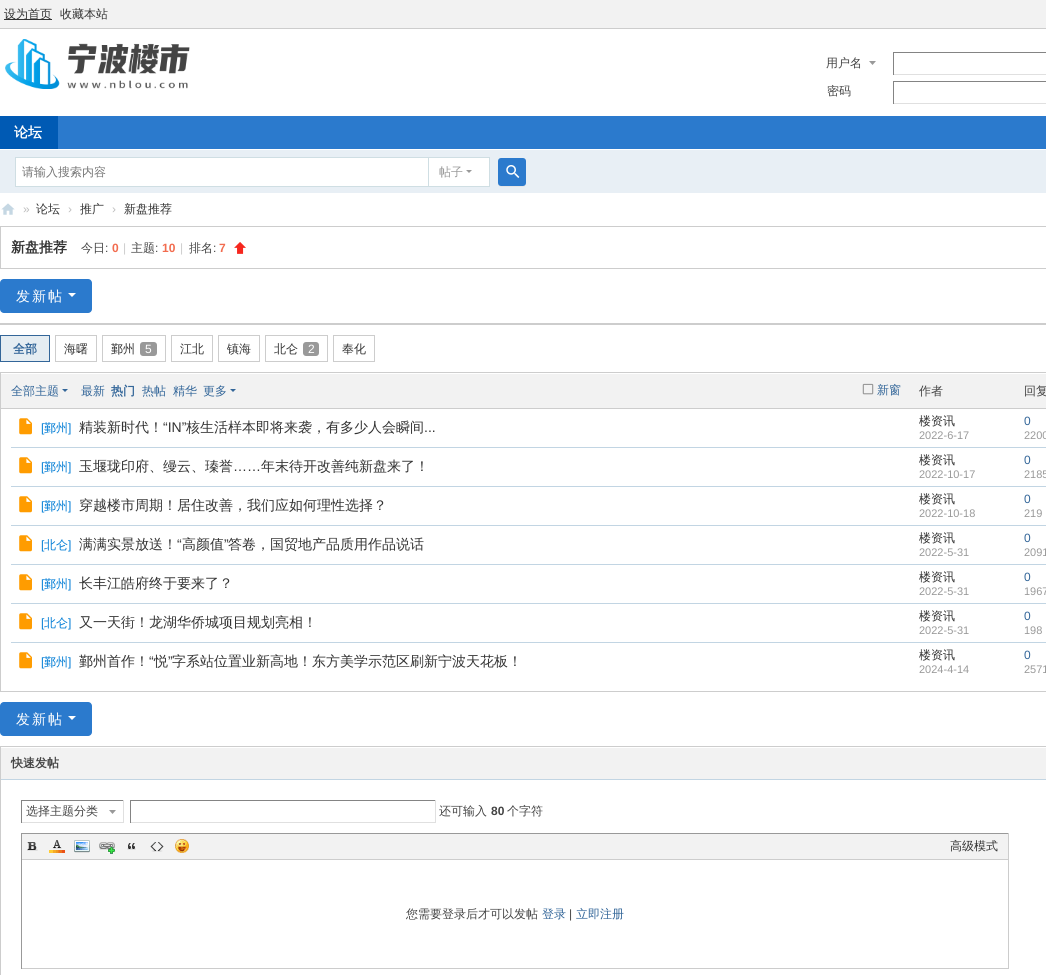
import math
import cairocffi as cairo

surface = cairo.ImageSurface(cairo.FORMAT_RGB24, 1046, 975)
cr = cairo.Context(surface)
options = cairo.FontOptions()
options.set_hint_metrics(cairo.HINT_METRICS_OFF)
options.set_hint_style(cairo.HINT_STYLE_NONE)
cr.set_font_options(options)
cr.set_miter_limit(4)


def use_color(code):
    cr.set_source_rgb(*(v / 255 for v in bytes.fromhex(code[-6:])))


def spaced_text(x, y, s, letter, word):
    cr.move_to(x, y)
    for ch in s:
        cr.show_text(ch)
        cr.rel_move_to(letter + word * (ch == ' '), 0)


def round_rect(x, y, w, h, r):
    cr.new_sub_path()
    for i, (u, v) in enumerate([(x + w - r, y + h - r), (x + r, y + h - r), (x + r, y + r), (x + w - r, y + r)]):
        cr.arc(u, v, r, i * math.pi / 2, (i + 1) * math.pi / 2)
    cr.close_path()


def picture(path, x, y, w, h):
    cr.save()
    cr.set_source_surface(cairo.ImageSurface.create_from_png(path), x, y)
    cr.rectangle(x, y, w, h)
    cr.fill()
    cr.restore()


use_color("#ffffff")
cr.paint()
use_color("#f2f2f2")
cr.rectangle(0, 0, 1046, 28)
cr.fill()
use_color("#cdcdcd")
cr.rectangle(0, 28, 1046, 1)
cr.fill()
use_color("#333333")
cr.rectangle(4, 19, 48, 1)
cr.fill()
cr.select_font_face("WenQuanYi Zen Hei Medium")
cr.set_font_size(12)
cr.move_to(4, 18)
cr.show_text("设为首页")
cr.move_to(60, 18)
cr.show_text("收藏本站")
picture("img1.png", 5, 39, 185, 50)
use_color("#999999")
cr.new_path()
cr.move_to(876, 61)
cr.line_to(869, 61)
cr.line_to(872.5, 65)
cr.close_path()
cr.fill()
use_color("#444444")
cr.move_to(826, 67)
cr.show_text("用户名")
use_color("#848484")
cr.rectangle(893, 52, 153, 1)
cr.fill()
use_color("#e0e0e0")
cr.rectangle(893, 74, 153, 1)
cr.fill()
use_color("#848484")
cr.rectangle(893, 52, 1, 23)
cr.fill()
use_color("#444444")
cr.move_to(827, 95)
cr.show_text("密码")
use_color("#848484")
cr.rectangle(893, 81, 153, 1)
cr.fill()
use_color("#e0e0e0")
cr.rectangle(893, 103, 153, 1)
cr.fill()
use_color("#848484")
cr.rectangle(893, 81, 1, 23)
cr.fill()
use_color("#2b7acd")
cr.rectangle(58, 116, 988, 33)
cr.fill()
use_color("#005ab4")
cr.rectangle(0, 116, 58, 33)
cr.fill()
cr.select_font_face("WenQuanYi Zen Hei", cairo.FONT_SLANT_NORMAL, cairo.FONT_WEIGHT_BOLD)
cr.set_font_size(14)
use_color("#ffffff")
cr.move_to(14, 137)
cr.show_text("论坛")
use_color("#e8eff5")
cr.rectangle(0, 150, 1046, 43)
cr.fill()
use_color("#cfdee3")
cr.rectangle(427, 157, 63, 1)
cr.fill()
cr.rectangle(489, 157, 1, 30)
cr.fill()
cr.rectangle(427, 186, 63, 1)
cr.fill()
use_color("#ffffff")
cr.rectangle(15.5, 157.5, 413, 29)
cr.fill_preserve()
use_color("#cfdee3")
cr.set_line_width(1)
cr.stroke()
cr.select_font_face("WenQuanYi Zen Hei Medium")
cr.set_font_size(12)
use_color("#757575")
cr.move_to(22, 176)
cr.show_text("请输入搜索内容")
use_color("#ffffff")
cr.rectangle(429, 158, 60, 28)
cr.fill()
use_color("#999999")
cr.move_to(439, 176)
cr.show_text("帖子")
cr.new_path()
cr.move_to(466, 170)
cr.line_to(472, 170)
cr.line_to(469, 173)
cr.close_path()
cr.fill()
use_color("#e5e5e5")
cr.new_path()
cr.move_to(498, 183)
cr.curve_to(498, 187.5, 501, 187, 504.5, 187)
cr.line_to(519.5, 187)
cr.curve_to(523, 187, 526, 187.5, 526, 183)
cr.curve_to(526, 184.5, 524.5, 186, 523, 186)
cr.line_to(501, 186)
cr.curve_to(499.5, 186, 498, 184.5, 498, 183)
cr.close_path()
cr.fill()
use_color("#2b7acd")
round_rect(498, 158, 28, 28, 3)
cr.fill()
picture("img2.png", 506, 165, 14, 13)
picture("img3.png", 1, 203, 14, 12)
cr.select_font_face("Liberation Sans")
use_color("#bdbdbd")
cr.move_to(23, 213)
cr.show_text("»")
cr.select_font_face("WenQuanYi Zen Hei Medium")
use_color("#333333")
cr.move_to(36, 213)
cr.show_text("论坛")
cr.select_font_face("Liberation Sans")
use_color("#bdbdbd")
cr.move_to(68, 213)
cr.show_text("›")
cr.select_font_face("WenQuanYi Zen Hei Medium")
use_color("#333333")
cr.move_to(80, 213)
cr.show_text("推广")
cr.select_font_face("Liberation Sans")
use_color("#bdbdbd")
cr.move_to(112, 213)
cr.show_text("›")
cr.select_font_face("WenQuanYi Zen Hei Medium")
use_color("#333333")
cr.move_to(124, 213)
cr.show_text("新盘推荐")
cr.rectangle(0.5, 226.5, 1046, 42)
use_color("#cdcdcd")
cr.stroke()
cr.select_font_face("WenQuanYi Zen Hei", cairo.FONT_SLANT_NORMAL, cairo.FONT_WEIGHT_BOLD)
cr.set_font_size(14)
use_color("#333333")
cr.move_to(11, 252)
cr.show_text("新盘推荐")
cr.select_font_face("WenQuanYi Zen Hei Medium")
cr.set_font_size(12)
use_color("#444444")
cr.move_to(81, 252)
cr.show_text("今日")
cr.select_font_face("Liberation Sans")
cr.move_to(105, 252)
cr.show_text(":")
cr.select_font_face("Liberation Sans", cairo.FONT_SLANT_NORMAL, cairo.FONT_WEIGHT_BOLD)
use_color("#f26c4f")
cr.move_to(112, 252)
cr.show_text("0")
cr.select_font_face("Liberation Sans")
use_color("#cccccc")
cr.move_to(123, 252)
cr.show_text("|")
cr.select_font_face("WenQuanYi Zen Hei Medium")
use_color("#444444")
cr.move_to(131, 252)
cr.show_text("主题")
cr.select_font_face("Liberation Sans")
cr.move_to(155, 252)
cr.show_text(":")
cr.select_font_face("Liberation Sans", cairo.FONT_SLANT_NORMAL, cairo.FONT_WEIGHT_BOLD)
use_color("#f26c4f")
cr.move_to(162, 252)
cr.show_text("10")
cr.select_font_face("Liberation Sans")
use_color("#cccccc")
cr.move_to(180, 252)
cr.show_text("|")
cr.select_font_face("WenQuanYi Zen Hei Medium")
use_color("#444444")
cr.move_to(189, 252)
cr.show_text("排名")
cr.select_font_face("Liberation Sans")
cr.move_to(213, 252)
cr.show_text(":")
cr.select_font_face("Liberation Sans", cairo.FONT_SLANT_NORMAL, cairo.FONT_WEIGHT_BOLD)
use_color("#f26c4f")
cr.move_to(219, 252)
cr.show_text("7")
picture("img4.png", 234, 242, 12, 12)
use_color("#2b7acd")
round_rect(0, 279, 92, 34, 4)
cr.fill()
cr.select_font_face("WenQuanYi Zen Hei Medium")
cr.set_font_size(14)
use_color("#ffffff")
spaced_text(16, 301, "发新帖", 2, 0)
cr.new_path()
cr.move_to(68, 293)
cr.line_to(76, 293)
cr.line_to(72, 297)
cr.close_path()
cr.fill()
use_color("#cdcdcd")
cr.rectangle(0, 323, 1046, 2)
cr.fill()
use_color("#e5edf2")
cr.rectangle(0.5, 335.5, 49, 26)
cr.fill_preserve()
use_color("#336699")
cr.stroke()
cr.select_font_face("WenQuanYi Zen Hei", cairo.FONT_SLANT_NORMAL, cairo.FONT_WEIGHT_BOLD)
cr.set_font_size(12)
cr.move_to(13, 353)
cr.show_text("全部")
cr.rectangle(55.5, 335.5, 41, 26)
use_color("#cdcdcd")
cr.stroke()
cr.select_font_face("WenQuanYi Zen Hei Medium")
use_color("#333333")
cr.move_to(64, 353)
cr.show_text("海曙")
cr.rectangle(102.5, 335.5, 63, 26)
use_color("#cdcdcd")
cr.stroke()
use_color("#333333")
cr.move_to(111, 353)
cr.show_text("鄞州")
use_color("#999999")
round_rect(140, 342, 17, 14, 3)
cr.fill()
cr.select_font_face("Liberation Sans")
use_color("#ffffff")
cr.move_to(145, 353)
cr.show_text("5")
cr.rectangle(171.5, 335.5, 41, 26)
use_color("#cdcdcd")
cr.stroke()
cr.select_font_face("WenQuanYi Zen Hei Medium")
use_color("#333333")
cr.move_to(180, 353)
cr.show_text("江北")
cr.rectangle(218.5, 335.5, 41, 26)
use_color("#cdcdcd")
cr.stroke()
use_color("#333333")
cr.move_to(227, 353)
cr.show_text("镇海")
cr.rectangle(265.5, 335.5, 62, 26)
use_color("#cdcdcd")
cr.stroke()
use_color("#333333")
cr.move_to(274, 353)
cr.show_text("北仑")
use_color("#999999")
round_rect(303, 342, 16, 14, 3)
cr.fill()
cr.select_font_face("Liberation Sans")
use_color("#ffffff")
cr.move_to(308, 353)
cr.show_text("2")
cr.rectangle(333.5, 335.5, 41, 26)
use_color("#cdcdcd")
cr.stroke()
cr.select_font_face("WenQuanYi Zen Hei Medium")
use_color("#333333")
cr.move_to(342, 353)
cr.show_text("奉化")
cr.rectangle(0.5, 372.5, 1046, 319)
use_color("#cdcdcd")
cr.stroke()
use_color("#f2f2f2")
cr.rectangle(1, 374, 1045, 34)
cr.fill()
use_color("#cdcdcd")
cr.rectangle(1, 408, 1045, 1)
cr.fill()
use_color("#336699")
cr.move_to(11, 395)
cr.show_text("全部主题")
cr.new_path()
cr.move_to(62, 389)
cr.line_to(68, 389)
cr.line_to(65, 392)
cr.close_path()
cr.fill()
cr.move_to(81, 395)
cr.show_text("最新")
cr.select_font_face("WenQuanYi Zen Hei", cairo.FONT_SLANT_NORMAL, cairo.FONT_WEIGHT_BOLD)
cr.move_to(111, 395)
cr.show_text("热门")
cr.select_font_face("WenQuanYi Zen Hei Medium")
cr.move_to(142, 395)
cr.show_text("热帖")
cr.move_to(173, 395)
cr.show_text("精华")
cr.move_to(203, 395)
cr.show_text("更多")
cr.new_path()
cr.move_to(230, 389)
cr.line_to(236, 389)
cr.line_to(233, 392)
cr.close_path()
cr.fill()
picture("img5.png", 862, 383, 12, 12)
cr.move_to(877, 394)
cr.show_text("新窗")
use_color("#444444")
cr.move_to(919, 395)
cr.show_text("作者")
cr.move_to(1024, 395)
cr.show_text("回复")
use_color("#333333")
cr.move_to(919, 425)
cr.show_text("楼资讯")
cr.select_font_face("Liberation Sans")
cr.set_font_size(11)
use_color("#999999")
cr.move_to(919, 439)
cr.show_text("2022-6-17")
cr.set_font_size(12)
use_color("#336699")
cr.move_to(1024, 425)
cr.show_text("0")
cr.set_font_size(11)
use_color("#999999")
cr.move_to(1024, 439)
cr.show_text("2200")
use_color("#c2d5e3")
cr.rectangle(11, 447, 1035, 1)
cr.fill()
picture("img6.png", 19, 418, 13, 17)
cr.set_font_size(12)
use_color("#007cd5")
cr.move_to(41, 432)
cr.show_text("[")
cr.select_font_face("WenQuanYi Zen Hei Medium")
cr.move_to(44, 432)
cr.show_text("鄞州")
cr.select_font_face("Liberation Sans")
cr.move_to(68, 432)
cr.show_text("]")
cr.select_font_face("WenQuanYi Zen Hei Medium")
cr.set_font_size(14)
use_color("#333333")
cr.move_to(79, 432)
cr.show_text("精装新时代！")
cr.select_font_face("Liberation Sans")
cr.move_to(163, 432)
cr.show_text("“IN”")
cr.select_font_face("WenQuanYi Zen Hei Medium")
cr.move_to(186, 432)
cr.show_text("核生活样本即将来袭，有多少人会瞬间")
cr.select_font_face("Liberation Sans")
cr.move_to(424, 432)
cr.show_text("...")
cr.select_font_face("WenQuanYi Zen Hei Medium")
cr.set_font_size(12)
cr.move_to(919, 464)
cr.show_text("楼资讯")
cr.select_font_face("Liberation Sans")
cr.set_font_size(11)
use_color("#999999")
cr.move_to(919, 478)
cr.show_text("2022-10-17")
cr.set_font_size(12)
use_color("#336699")
cr.move_to(1024, 464)
cr.show_text("0")
cr.set_font_size(11)
use_color("#999999")
cr.move_to(1024, 478)
cr.show_text("2185")
use_color("#c2d5e3")
cr.rectangle(11, 486, 1035, 1)
cr.fill()
picture("img6.png", 19, 457, 13, 17)
cr.set_font_size(12)
use_color("#007cd5")
cr.move_to(41, 471)
cr.show_text("[")
cr.select_font_face("WenQuanYi Zen Hei Medium")
cr.move_to(44, 471)
cr.show_text("鄞州")
cr.select_font_face("Liberation Sans")
cr.move_to(68, 471)
cr.show_text("]")
cr.select_font_face("WenQuanYi Zen Hei Medium")
cr.set_font_size(14)
use_color("#333333")
cr.move_to(79, 471)
cr.show_text("玉堰珑印府、缦云、瑧誉")
cr.select_font_face("Liberation Sans")
cr.move_to(233, 471)
cr.show_text("……")
cr.select_font_face("WenQuanYi Zen Hei Medium")
cr.move_to(261, 471)
cr.show_text("年末待开改善纯新盘来了！")
cr.set_font_size(12)
cr.move_to(919, 503)
cr.show_text("楼资讯")
cr.select_font_face("Liberation Sans")
cr.set_font_size(11)
use_color("#999999")
cr.move_to(919, 517)
cr.show_text("2022-10-18")
cr.set_font_size(12)
use_color("#336699")
cr.move_to(1024, 503)
cr.show_text("0")
cr.set_font_size(11)
use_color("#999999")
cr.move_to(1024, 517)
cr.show_text("219")
use_color("#c2d5e3")
cr.rectangle(11, 525, 1035, 1)
cr.fill()
picture("img6.png", 19, 496, 13, 17)
cr.set_font_size(12)
use_color("#007cd5")
cr.move_to(41, 510)
cr.show_text("[")
cr.select_font_face("WenQuanYi Zen Hei Medium")
cr.move_to(44, 510)
cr.show_text("鄞州")
cr.select_font_face("Liberation Sans")
cr.move_to(68, 510)
cr.show_text("]")
cr.select_font_face("WenQuanYi Zen Hei Medium")
cr.set_font_size(14)
use_color("#333333")
cr.move_to(79, 510)
cr.show_text("穿越楼市周期！居住改善，我们应如何理性选择？")
cr.set_font_size(12)
cr.move_to(919, 542)
cr.show_text("楼资讯")
cr.select_font_face("Liberation Sans")
cr.set_font_size(11)
use_color("#999999")
cr.move_to(919, 556)
cr.show_text("2022-5-31")
cr.set_font_size(12)
use_color("#336699")
cr.move_to(1024, 542)
cr.show_text("0")
cr.set_font_size(11)
use_color("#999999")
cr.move_to(1024, 556)
cr.show_text("2091")
use_color("#c2d5e3")
cr.rectangle(11, 564, 1035, 1)
cr.fill()
picture("img6.png", 19, 535, 13, 17)
cr.set_font_size(12)
use_color("#007cd5")
cr.move_to(41, 549)
cr.show_text("[")
cr.select_font_face("WenQuanYi Zen Hei Medium")
cr.move_to(44, 549)
cr.show_text("北仑")
cr.select_font_face("Liberation Sans")
cr.move_to(68, 549)
cr.show_text("]")
cr.select_font_face("WenQuanYi Zen Hei Medium")
cr.set_font_size(14)
use_color("#333333")
cr.move_to(79, 549)
cr.show_text("满满实景放送！")
cr.select_font_face("Liberation Sans")
cr.move_to(177, 549)
cr.show_text("“")
cr.select_font_face("WenQuanYi Zen Hei Medium")
cr.move_to(182, 549)
cr.show_text("高颜值")
cr.select_font_face("Liberation Sans")
cr.move_to(224, 549)
cr.show_text("”")
cr.select_font_face("WenQuanYi Zen Hei Medium")
cr.move_to(228, 549)
cr.show_text("答卷，国贸地产品质用作品说话")
cr.set_font_size(12)
cr.move_to(919, 581)
cr.show_text("楼资讯")
cr.select_font_face("Liberation Sans")
cr.set_font_size(11)
use_color("#999999")
cr.move_to(919, 595)
cr.show_text("2022-5-31")
cr.set_font_size(12)
use_color("#336699")
cr.move_to(1024, 581)
cr.show_text("0")
cr.set_font_size(11)
use_color("#999999")
cr.move_to(1024, 595)
cr.show_text("1967")
use_color("#c2d5e3")
cr.rectangle(11, 603, 1035, 1)
cr.fill()
picture("img6.png", 19, 574, 13, 17)
cr.set_font_size(12)
use_color("#007cd5")
cr.move_to(41, 588)
cr.show_text("[")
cr.select_font_face("WenQuanYi Zen Hei Medium")
cr.move_to(44, 588)
cr.show_text("鄞州")
cr.select_font_face("Liberation Sans")
cr.move_to(68, 588)
cr.show_text("]")
cr.select_font_face("WenQuanYi Zen Hei Medium")
cr.set_font_size(14)
use_color("#333333")
cr.move_to(79, 588)
cr.show_text("长丰江皓府终于要来了？")
cr.set_font_size(12)
cr.move_to(919, 620)
cr.show_text("楼资讯")
cr.select_font_face("Liberation Sans")
cr.set_font_size(11)
use_color("#999999")
cr.move_to(919, 634)
cr.show_text("2022-5-31")
cr.set_font_size(12)
use_color("#336699")
cr.move_to(1024, 620)
cr.show_text("0")
cr.set_font_size(11)
use_color("#999999")
cr.move_to(1024, 634)
cr.show_text("198")
use_color("#c2d5e3")
cr.rectangle(11, 642, 1035, 1)
cr.fill()
picture("img6.png", 19, 613, 13, 17)
cr.set_font_size(12)
use_color("#007cd5")
cr.move_to(41, 627)
cr.show_text("[")
cr.select_font_face("WenQuanYi Zen Hei Medium")
cr.move_to(44, 627)
cr.show_text("北仑")
cr.select_font_face("Liberation Sans")
cr.move_to(68, 627)
cr.show_text("]")
cr.select_font_face("WenQuanYi Zen Hei Medium")
cr.set_font_size(14)
use_color("#333333")
cr.move_to(79, 627)
cr.show_text("又一天街！龙湖华侨城项目规划亮相！")
picture("img6.png", 19, 652, 13, 17)
cr.select_font_face("Liberation Sans")
cr.set_font_size(12)
use_color("#007cd5")
cr.move_to(41, 666)
cr.show_text("[")
cr.select_font_face("WenQuanYi Zen Hei Medium")
cr.move_to(44, 666)
cr.show_text("鄞州")
cr.select_font_face("Liberation Sans")
cr.move_to(68, 666)
cr.show_text("]")
cr.select_font_face("WenQuanYi Zen Hei Medium")
cr.set_font_size(14)
use_color("#333333")
cr.move_to(79, 666)
cr.show_text("鄞州首作！")
cr.select_font_face("Liberation Sans")
cr.move_to(149, 666)
cr.show_text("“")
cr.select_font_face("WenQuanYi Zen Hei Medium")
cr.move_to(154, 666)
cr.show_text("悦")
cr.select_font_face("Liberation Sans")
cr.move_to(168, 666)
cr.show_text("”")
cr.select_font_face("WenQuanYi Zen Hei Medium")
cr.move_to(172, 666)
cr.show_text("字系站位置业新高地！东方美学示范区刷新宁波天花板！")
cr.set_font_size(12)
cr.move_to(919, 659)
cr.show_text("楼资讯")
cr.select_font_face("Liberation Sans")
cr.set_font_size(11)
use_color("#999999")
cr.move_to(919, 673)
cr.show_text("2024-4-14")
cr.set_font_size(12)
use_color("#336699")
cr.move_to(1024, 659)
cr.show_text("0")
cr.set_font_size(11)
use_color("#999999")
cr.move_to(1024, 673)
cr.show_text("2571")
use_color("#2b7acd")
round_rect(0, 702, 92, 34, 4)
cr.fill()
cr.select_font_face("WenQuanYi Zen Hei Medium")
cr.set_font_size(14)
use_color("#ffffff")
spaced_text(16, 724, "发新帖", 2, 0)
cr.new_path()
cr.move_to(68, 716)
cr.line_to(76, 716)
cr.line_to(72, 720)
cr.close_path()
cr.fill()
cr.rectangle(0.5, 746.5, 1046, 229)
use_color("#cdcdcd")
cr.stroke()
use_color("#f2f2f2")
cr.rectangle(1, 748, 1045, 31)
cr.fill()
use_color("#c2d5e3")
cr.rectangle(1, 779, 1045, 1)
cr.fill()
cr.select_font_face("WenQuanYi Zen Hei", cairo.FONT_SLANT_NORMAL, cairo.FONT_WEIGHT_BOLD)
cr.set_font_size(12)
use_color("#444444")
cr.move_to(11, 767)
cr.show_text("快速发帖")
use_color("#999999")
cr.new_path()
cr.move_to(116, 810)
cr.line_to(109, 810)
cr.line_to(112.5, 814)
cr.close_path()
cr.fill()
use_color("#848484")
cr.rectangle(21, 800, 103, 1)
cr.fill()
use_color("#e0e0e0")
cr.rectangle(123, 800, 1, 23)
cr.fill()
cr.rectangle(21, 822, 103, 1)
cr.fill()
use_color("#848484")
cr.rectangle(21, 800, 1, 23)
cr.fill()
cr.select_font_face("WenQuanYi Zen Hei Medium")
use_color("#444444")
cr.move_to(26, 815)
cr.show_text("选择主题分类")
use_color("#848484")
cr.rectangle(130, 800, 306, 1)
cr.fill()
use_color("#e0e0e0")
cr.rectangle(435, 800, 1, 23)
cr.fill()
cr.rectangle(130, 822, 306, 1)
cr.fill()
use_color("#848484")
cr.rectangle(130, 800, 1, 23)
cr.fill()
use_color("#444444")
cr.move_to(439, 815)
cr.show_text("还可输入")
cr.select_font_face("Liberation Sans", cairo.FONT_SLANT_NORMAL, cairo.FONT_WEIGHT_BOLD)
cr.move_to(491, 815)
cr.show_text("80")
cr.select_font_face("WenQuanYi Zen Hei Medium")
cr.move_to(507, 815)
cr.show_text("个字符")
use_color("#999999")
cr.rectangle(21, 833, 988, 1)
cr.fill()
use_color("#cccccc")
cr.rectangle(1008, 833, 1, 136)
cr.fill()
cr.rectangle(21, 968, 988, 1)
cr.fill()
use_color("#999999")
cr.rectangle(21, 833, 1, 136)
cr.fill()
use_color("#f2f2f2")
cr.rectangle(22, 834, 986, 25)
cr.fill()
use_color("#cdcdcd")
cr.rectangle(22, 859, 986, 1)
cr.fill()
picture("img7.png", 27, 842, 11, 9)
picture("img8.png", 49, 840, 16, 13)
picture("img9.png", 74, 840, 16, 13)
picture("img10.png", 99, 842, 17, 12)
picture("img11.png", 127, 843, 9, 7)
picture("img12.png", 150, 842, 14, 10)
picture("img13.png", 174, 839, 15, 14)
use_color("#333333")
cr.move_to(950, 850)
cr.show_text("高级模式")
use_color("#444444")
cr.move_to(406, 918)
cr.show_text("您需要登录后才可以发帖")
use_color("#336699")
cr.move_to(542, 918)
cr.show_text("登录")
cr.select_font_face("Liberation Sans")
use_color("#444444")
cr.move_to(569, 918)
cr.show_text("|")
cr.select_font_face("WenQuanYi Zen Hei Medium")
use_color("#336699")
cr.move_to(576, 918)
cr.show_text("立即注册")
surface.write_to_png("result.png")
